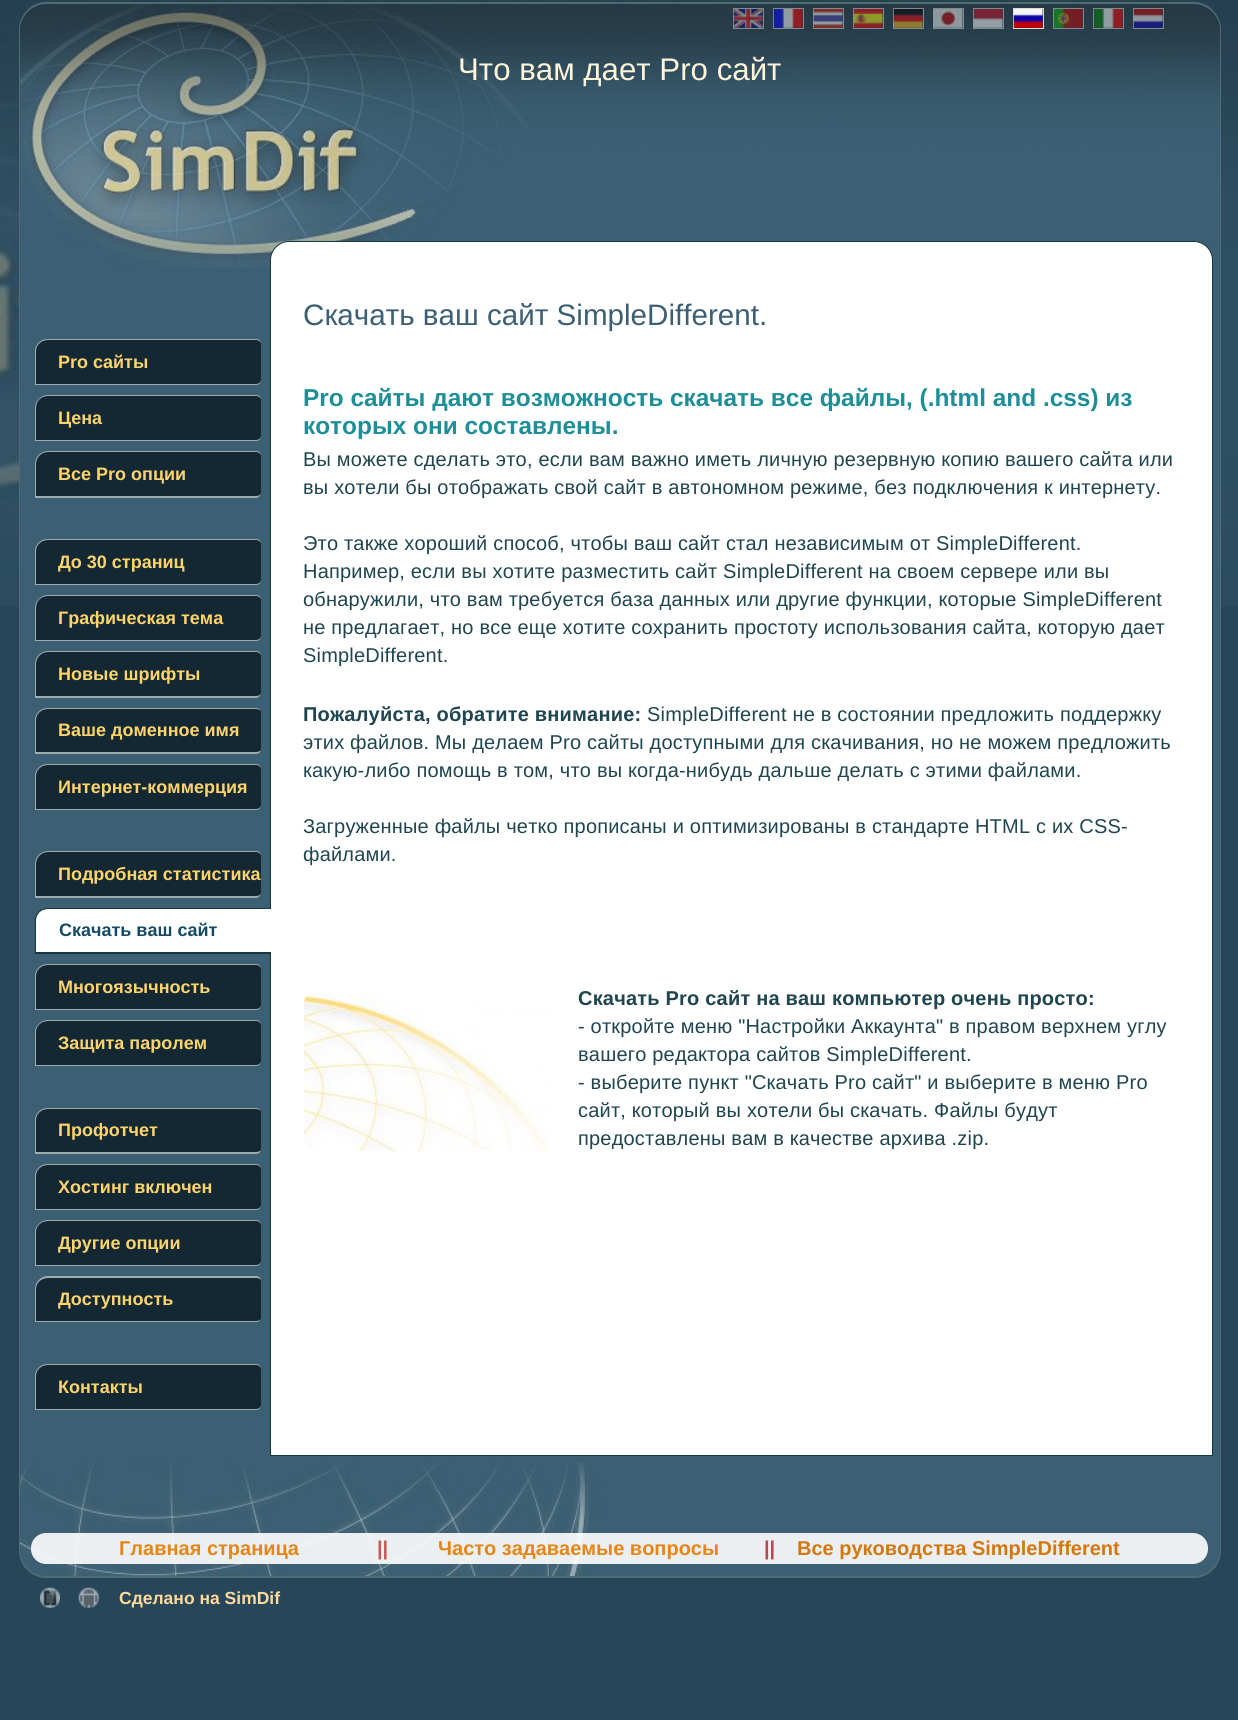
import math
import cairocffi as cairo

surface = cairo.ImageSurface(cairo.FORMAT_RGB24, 1238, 1720)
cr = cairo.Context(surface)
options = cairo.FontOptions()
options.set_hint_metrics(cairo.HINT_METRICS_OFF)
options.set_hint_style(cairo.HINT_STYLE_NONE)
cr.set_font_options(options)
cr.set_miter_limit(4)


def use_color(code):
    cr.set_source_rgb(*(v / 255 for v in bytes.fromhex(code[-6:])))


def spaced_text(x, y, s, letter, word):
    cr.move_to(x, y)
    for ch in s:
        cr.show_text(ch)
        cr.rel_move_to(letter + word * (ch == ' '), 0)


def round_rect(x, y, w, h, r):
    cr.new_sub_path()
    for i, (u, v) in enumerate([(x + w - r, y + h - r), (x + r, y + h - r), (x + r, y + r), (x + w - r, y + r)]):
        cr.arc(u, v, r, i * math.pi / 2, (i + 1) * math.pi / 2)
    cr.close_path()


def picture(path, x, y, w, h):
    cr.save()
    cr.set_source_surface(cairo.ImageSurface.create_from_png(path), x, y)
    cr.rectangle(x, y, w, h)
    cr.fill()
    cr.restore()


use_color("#28465a")
cr.paint()
picture("img1.png", 0, 0, 1238, 606)
use_color("#3c5f73")
cr.new_path()
cr.move_to(46, 4)
cr.line_to(1194, 4)
cr.curve_to(1208.5, 4, 1220, 15.5, 1220, 30)
cr.line_to(1220, 1458)
cr.line_to(20, 1458)
cr.line_to(20, 30)
cr.curve_to(20, 15.5, 31.5, 4, 46, 4)
cr.close_path()
cr.fill()
picture("img2.png", 20, 4, 1200, 264)
use_color("#506b72")
cr.set_fill_rule(cairo.FILL_RULE_EVEN_ODD)
cr.new_path()
cr.move_to(46, 2)
cr.line_to(1194, 2)
cr.curve_to(1209, 2, 1221, 15, 1221, 30)
cr.line_to(1221, 1458)
cr.line_to(19, 1458)
cr.line_to(19, 30)
cr.curve_to(19, 15, 31, 2, 46, 2)
cr.close_path()
cr.move_to(46, 4)
cr.line_to(1194, 4)
cr.curve_to(1208, 4, 1220, 16, 1220, 30)
cr.line_to(1220, 1458)
cr.line_to(20, 1458)
cr.line_to(20, 30)
cr.curve_to(20, 16, 32, 4, 46, 4)
cr.close_path()
cr.fill()
cr.rectangle(733.5, 8.5, 30, 20)
cr.set_source_rgba(0.855, 0.855, 0.855, 0.5)
cr.set_line_width(1)
cr.stroke()
picture("img3.png", 733, 9, 30, 19)
cr.rectangle(773.5, 8.5, 30, 20)
cr.stroke()
picture("img4.png", 773, 9, 30, 19)
cr.rectangle(813.5, 8.5, 30, 20)
cr.stroke()
picture("img5.png", 813, 9, 30, 19)
cr.rectangle(853.5, 8.5, 30, 20)
cr.stroke()
picture("img6.png", 853, 9, 30, 19)
cr.rectangle(893.5, 8.5, 30, 20)
cr.stroke()
picture("img7.png", 893, 9, 30, 19)
cr.rectangle(933.5, 8.5, 30, 20)
cr.stroke()
picture("img8.png", 933, 9, 30, 19)
cr.rectangle(973.5, 8.5, 30, 20)
cr.stroke()
picture("img9.png", 973, 9, 30, 19)
cr.rectangle(1013.5, 8.5, 30, 20)
use_color("#dadada")
cr.stroke()
picture("img10.png", 1013, 9, 30, 19)
cr.rectangle(1053.5, 8.5, 30, 20)
cr.set_source_rgba(0.855, 0.855, 0.855, 0.5)
cr.stroke()
picture("img11.png", 1053, 9, 30, 19)
cr.rectangle(1093.5, 8.5, 30, 20)
cr.stroke()
picture("img12.png", 1093, 9, 30, 19)
cr.rectangle(1133.5, 8.5, 30, 20)
cr.stroke()
picture("img13.png", 1133, 9, 30, 19)
cr.select_font_face("Liberation Sans")
cr.set_font_size(31.25)
use_color("#fff5d8")
cr.move_to(458, 80)
cr.show_text("Что вам дает Pro сайт")
use_color("#142834")
cr.set_fill_rule(cairo.FILL_RULE_WINDING)
cr.new_path()
cr.move_to(48, 340)
cr.line_to(256, 340)
cr.curve_to(259, 340, 261, 342, 261, 344)
cr.line_to(261, 380)
cr.curve_to(261, 382, 259, 384, 256, 384)
cr.line_to(36, 384)
cr.line_to(36, 351)
cr.curve_to(36, 345, 41, 340, 48, 340)
cr.close_path()
cr.fill()
use_color("#9cacb1")
cr.set_fill_rule(cairo.FILL_RULE_EVEN_ODD)
cr.new_path()
cr.move_to(48, 339)
cr.line_to(256, 339)
cr.curve_to(259, 339, 261, 341, 261, 344)
cr.line_to(261, 380)
cr.curve_to(261, 383, 259, 385, 256, 385)
cr.line_to(35, 385)
cr.line_to(35, 351)
cr.curve_to(35, 344, 41, 339, 48, 339)
cr.close_path()
cr.move_to(48, 340)
cr.line_to(256, 340)
cr.curve_to(259, 340, 261, 342, 261, 344)
cr.line_to(261, 380)
cr.curve_to(261, 382, 259, 384, 256, 384)
cr.line_to(36, 384)
cr.line_to(36, 351)
cr.curve_to(36, 345, 41, 340, 48, 340)
cr.close_path()
cr.fill()
cr.select_font_face("Liberation Sans", cairo.FONT_SLANT_NORMAL, cairo.FONT_WEIGHT_BOLD)
cr.set_font_size(18)
use_color("#fdd46b")
cr.move_to(58, 368)
cr.show_text("Pro сайты")
use_color("#142834")
cr.set_fill_rule(cairo.FILL_RULE_WINDING)
cr.new_path()
cr.move_to(48, 396)
cr.line_to(256, 396)
cr.curve_to(259, 396, 261, 398, 261, 400)
cr.line_to(261, 436)
cr.curve_to(261, 438, 259, 440, 256, 440)
cr.line_to(36, 440)
cr.line_to(36, 408)
cr.curve_to(36, 401, 41, 396, 48, 396)
cr.close_path()
cr.fill()
use_color("#9cacb1")
cr.set_fill_rule(cairo.FILL_RULE_EVEN_ODD)
cr.new_path()
cr.move_to(48, 395)
cr.line_to(256, 395)
cr.curve_to(259, 395, 261, 397, 261, 400)
cr.line_to(261, 436)
cr.curve_to(261, 439, 259, 441, 256, 441)
cr.line_to(35, 441)
cr.line_to(35, 408)
cr.curve_to(35, 401, 41, 395, 48, 395)
cr.close_path()
cr.move_to(48, 396)
cr.line_to(256, 396)
cr.curve_to(259, 396, 261, 398, 261, 400)
cr.line_to(261, 436)
cr.curve_to(261, 438, 259, 440, 256, 440)
cr.line_to(36, 440)
cr.line_to(36, 408)
cr.curve_to(36, 401, 41, 396, 48, 396)
cr.close_path()
cr.fill()
use_color("#fdd46b")
cr.move_to(58, 424)
cr.show_text("Цена")
use_color("#142834")
cr.set_fill_rule(cairo.FILL_RULE_WINDING)
cr.new_path()
cr.move_to(48, 452)
cr.line_to(256, 452)
cr.curve_to(259, 452, 261, 454, 261, 456)
cr.line_to(261, 492)
cr.curve_to(261, 495, 259, 496, 256, 496)
cr.line_to(36, 496)
cr.line_to(36, 464)
cr.curve_to(36, 458, 41, 452, 48, 452)
cr.close_path()
cr.fill()
use_color("#9cacb1")
cr.set_fill_rule(cairo.FILL_RULE_EVEN_ODD)
cr.new_path()
cr.move_to(48, 451)
cr.line_to(256, 451)
cr.curve_to(259, 451, 261, 453, 261, 456)
cr.line_to(261, 492)
cr.curve_to(261, 495, 259, 498, 256, 498)
cr.line_to(35, 498)
cr.line_to(35, 464)
cr.curve_to(35, 457, 41, 451, 48, 451)
cr.close_path()
cr.move_to(48, 452)
cr.line_to(256, 452)
cr.curve_to(259, 452, 261, 454, 261, 456)
cr.line_to(261, 492)
cr.curve_to(261, 495, 259, 496, 256, 496)
cr.line_to(36, 496)
cr.line_to(36, 464)
cr.curve_to(36, 458, 41, 452, 48, 452)
cr.close_path()
cr.fill()
use_color("#fdd46b")
cr.move_to(58, 480)
cr.show_text("Все Pro опции")
use_color("#142834")
cr.set_fill_rule(cairo.FILL_RULE_WINDING)
cr.new_path()
cr.move_to(48, 540)
cr.line_to(256, 540)
cr.curve_to(259, 540, 261, 542, 261, 544)
cr.line_to(261, 580)
cr.curve_to(261, 582, 259, 584, 256, 584)
cr.line_to(36, 584)
cr.line_to(36, 551)
cr.curve_to(36, 545, 41, 540, 48, 540)
cr.close_path()
cr.fill()
use_color("#9cacb1")
cr.set_fill_rule(cairo.FILL_RULE_EVEN_ODD)
cr.new_path()
cr.move_to(48, 539)
cr.line_to(256, 539)
cr.curve_to(259, 539, 261, 541, 261, 544)
cr.line_to(261, 580)
cr.curve_to(261, 583, 259, 585, 256, 585)
cr.line_to(35, 585)
cr.line_to(35, 551)
cr.curve_to(35, 544, 41, 539, 48, 539)
cr.close_path()
cr.move_to(48, 540)
cr.line_to(256, 540)
cr.curve_to(259, 540, 261, 542, 261, 544)
cr.line_to(261, 580)
cr.curve_to(261, 582, 259, 584, 256, 584)
cr.line_to(36, 584)
cr.line_to(36, 551)
cr.curve_to(36, 545, 41, 540, 48, 540)
cr.close_path()
cr.fill()
use_color("#fdd46b")
cr.move_to(58, 568)
cr.show_text("До 30 страниц")
use_color("#142834")
cr.set_fill_rule(cairo.FILL_RULE_WINDING)
cr.new_path()
cr.move_to(48, 596)
cr.line_to(256, 596)
cr.curve_to(259, 596, 261, 598, 261, 600)
cr.line_to(261, 636)
cr.curve_to(261, 638, 259, 640, 256, 640)
cr.line_to(36, 640)
cr.line_to(36, 608)
cr.curve_to(36, 601, 41, 596, 48, 596)
cr.close_path()
cr.fill()
use_color("#9cacb1")
cr.set_fill_rule(cairo.FILL_RULE_EVEN_ODD)
cr.new_path()
cr.move_to(48, 595)
cr.line_to(256, 595)
cr.curve_to(259, 595, 261, 597, 261, 600)
cr.line_to(261, 636)
cr.curve_to(261, 639, 259, 641, 256, 641)
cr.line_to(35, 641)
cr.line_to(35, 608)
cr.curve_to(35, 601, 41, 595, 48, 595)
cr.close_path()
cr.move_to(48, 596)
cr.line_to(256, 596)
cr.curve_to(259, 596, 261, 598, 261, 600)
cr.line_to(261, 636)
cr.curve_to(261, 638, 259, 640, 256, 640)
cr.line_to(36, 640)
cr.line_to(36, 608)
cr.curve_to(36, 601, 41, 596, 48, 596)
cr.close_path()
cr.fill()
use_color("#fdd46b")
cr.move_to(58, 624)
cr.show_text("Графическая тема")
use_color("#142834")
cr.set_fill_rule(cairo.FILL_RULE_WINDING)
cr.new_path()
cr.move_to(48, 652)
cr.line_to(256, 652)
cr.curve_to(259, 652, 261, 654, 261, 656)
cr.line_to(261, 692)
cr.curve_to(261, 695, 259, 696, 256, 696)
cr.line_to(36, 696)
cr.line_to(36, 664)
cr.curve_to(36, 658, 41, 652, 48, 652)
cr.close_path()
cr.fill()
use_color("#9cacb1")
cr.set_fill_rule(cairo.FILL_RULE_EVEN_ODD)
cr.new_path()
cr.move_to(48, 651)
cr.line_to(256, 651)
cr.curve_to(259, 651, 261, 653, 261, 656)
cr.line_to(261, 692)
cr.curve_to(261, 695, 259, 698, 256, 698)
cr.line_to(35, 698)
cr.line_to(35, 664)
cr.curve_to(35, 657, 41, 651, 48, 651)
cr.close_path()
cr.move_to(48, 652)
cr.line_to(256, 652)
cr.curve_to(259, 652, 261, 654, 261, 656)
cr.line_to(261, 692)
cr.curve_to(261, 695, 259, 696, 256, 696)
cr.line_to(36, 696)
cr.line_to(36, 664)
cr.curve_to(36, 658, 41, 652, 48, 652)
cr.close_path()
cr.fill()
use_color("#fdd46b")
cr.move_to(58, 680)
cr.show_text("Новые шрифты")
use_color("#142834")
cr.set_fill_rule(cairo.FILL_RULE_WINDING)
cr.new_path()
cr.move_to(48, 709)
cr.line_to(256, 709)
cr.curve_to(259, 709, 261, 710, 261, 712)
cr.line_to(261, 749)
cr.curve_to(261, 751, 259, 752, 256, 752)
cr.line_to(36, 752)
cr.line_to(36, 720)
cr.curve_to(36, 714, 41, 709, 48, 709)
cr.close_path()
cr.fill()
use_color("#9cacb1")
cr.set_fill_rule(cairo.FILL_RULE_EVEN_ODD)
cr.new_path()
cr.move_to(48, 708)
cr.line_to(256, 708)
cr.curve_to(259, 708, 261, 710, 261, 712)
cr.line_to(261, 749)
cr.curve_to(261, 752, 259, 754, 256, 754)
cr.line_to(35, 754)
cr.line_to(35, 720)
cr.curve_to(35, 713, 41, 708, 48, 708)
cr.close_path()
cr.move_to(48, 709)
cr.line_to(256, 709)
cr.curve_to(259, 709, 261, 710, 261, 712)
cr.line_to(261, 749)
cr.curve_to(261, 751, 259, 752, 256, 752)
cr.line_to(36, 752)
cr.line_to(36, 720)
cr.curve_to(36, 714, 41, 709, 48, 709)
cr.close_path()
cr.fill()
use_color("#fdd46b")
cr.move_to(58, 736)
cr.show_text("Ваше доменное имя")
use_color("#142834")
cr.set_fill_rule(cairo.FILL_RULE_WINDING)
cr.new_path()
cr.move_to(48, 765)
cr.line_to(256, 765)
cr.curve_to(259, 765, 261, 767, 261, 769)
cr.line_to(261, 805)
cr.curve_to(261, 807, 259, 809, 256, 809)
cr.line_to(36, 809)
cr.line_to(36, 776)
cr.curve_to(36, 770, 41, 765, 48, 765)
cr.close_path()
cr.fill()
use_color("#9cacb1")
cr.set_fill_rule(cairo.FILL_RULE_EVEN_ODD)
cr.new_path()
cr.move_to(48, 764)
cr.line_to(256, 764)
cr.curve_to(259, 764, 261, 766, 261, 769)
cr.line_to(261, 805)
cr.curve_to(261, 808, 259, 810, 256, 810)
cr.line_to(35, 810)
cr.line_to(35, 776)
cr.curve_to(35, 769, 41, 764, 48, 764)
cr.close_path()
cr.move_to(48, 765)
cr.line_to(256, 765)
cr.curve_to(259, 765, 261, 767, 261, 769)
cr.line_to(261, 805)
cr.curve_to(261, 807, 259, 809, 256, 809)
cr.line_to(36, 809)
cr.line_to(36, 776)
cr.curve_to(36, 770, 41, 765, 48, 765)
cr.close_path()
cr.fill()
use_color("#fdd46b")
cr.move_to(58, 793)
cr.show_text("Интернет-коммерция")
use_color("#142834")
cr.set_fill_rule(cairo.FILL_RULE_WINDING)
cr.new_path()
cr.move_to(48, 852)
cr.line_to(256, 852)
cr.curve_to(259, 852, 261, 854, 261, 856)
cr.line_to(261, 892)
cr.curve_to(261, 895, 259, 896, 256, 896)
cr.line_to(36, 896)
cr.line_to(36, 864)
cr.curve_to(36, 858, 41, 852, 48, 852)
cr.close_path()
cr.fill()
use_color("#9cacb1")
cr.set_fill_rule(cairo.FILL_RULE_EVEN_ODD)
cr.new_path()
cr.move_to(48, 851)
cr.line_to(256, 851)
cr.curve_to(259, 851, 261, 853, 261, 856)
cr.line_to(261, 892)
cr.curve_to(261, 895, 259, 898, 256, 898)
cr.line_to(35, 898)
cr.line_to(35, 864)
cr.curve_to(35, 857, 41, 851, 48, 851)
cr.close_path()
cr.move_to(48, 852)
cr.line_to(256, 852)
cr.curve_to(259, 852, 261, 854, 261, 856)
cr.line_to(261, 892)
cr.curve_to(261, 895, 259, 896, 256, 896)
cr.line_to(36, 896)
cr.line_to(36, 864)
cr.curve_to(36, 858, 41, 852, 48, 852)
cr.close_path()
cr.fill()
use_color("#fdd46b")
cr.move_to(58, 880)
cr.show_text("Подробная статистика")
use_color("#ffffff")
cr.new_path()
cr.move_to(289, 241.5)
cr.line_to(1194, 241.5)
cr.curve_to(1204, 241.5, 1212.5, 250, 1212.5, 260)
cr.line_to(1212.5, 1455.5)
cr.line_to(270.5, 1455.5)
cr.line_to(270.5, 260)
cr.curve_to(270.5, 250, 279, 241.5, 289, 241.5)
cr.close_path()
cr.fill_preserve()
use_color("#13383f")
cr.stroke()
use_color("#ffffff")
cr.new_path()
cr.move_to(47, 909)
cr.line_to(271, 909)
cr.line_to(271, 953)
cr.line_to(36, 953)
cr.line_to(36, 920)
cr.curve_to(36, 914, 41, 909, 47, 909)
cr.close_path()
cr.fill()
use_color("#13383f")
cr.new_path()
cr.move_to(48, 908)
cr.line_to(271, 908)
cr.line_to(271, 954)
cr.line_to(35, 954)
cr.line_to(35, 920)
cr.curve_to(35, 913, 41, 908, 48, 908)
cr.close_path()
cr.move_to(48, 909)
cr.line_to(271, 909)
cr.line_to(271, 952)
cr.line_to(36, 952)
cr.line_to(36, 920)
cr.curve_to(36, 914, 41, 909, 48, 909)
cr.close_path()
cr.fill()
use_color("#144a66")
cr.move_to(59, 936)
cr.show_text("Скачать ваш сайт")
use_color("#142834")
cr.set_fill_rule(cairo.FILL_RULE_WINDING)
cr.new_path()
cr.move_to(48, 965)
cr.line_to(256, 965)
cr.curve_to(259, 965, 261, 967, 261, 969)
cr.line_to(261, 1005)
cr.curve_to(261, 1007, 259, 1009, 256, 1009)
cr.line_to(36, 1009)
cr.line_to(36, 976)
cr.curve_to(36, 970, 41, 965, 48, 965)
cr.close_path()
cr.fill()
use_color("#9cacb1")
cr.set_fill_rule(cairo.FILL_RULE_EVEN_ODD)
cr.new_path()
cr.move_to(48, 964)
cr.line_to(256, 964)
cr.curve_to(259, 964, 261, 966, 261, 969)
cr.line_to(261, 1005)
cr.curve_to(261, 1008, 259, 1010, 256, 1010)
cr.line_to(35, 1010)
cr.line_to(35, 976)
cr.curve_to(35, 969, 41, 964, 48, 964)
cr.close_path()
cr.move_to(48, 965)
cr.line_to(256, 965)
cr.curve_to(259, 965, 261, 967, 261, 969)
cr.line_to(261, 1005)
cr.curve_to(261, 1007, 259, 1009, 256, 1009)
cr.line_to(36, 1009)
cr.line_to(36, 976)
cr.curve_to(36, 970, 41, 965, 48, 965)
cr.close_path()
cr.fill()
use_color("#fdd46b")
cr.move_to(58, 993)
cr.show_text("Многоязычность")
use_color("#142834")
cr.set_fill_rule(cairo.FILL_RULE_WINDING)
cr.new_path()
cr.move_to(48, 1021)
cr.line_to(256, 1021)
cr.curve_to(259, 1021, 261, 1023, 261, 1025)
cr.line_to(261, 1061)
cr.curve_to(261, 1063, 259, 1065, 256, 1065)
cr.line_to(36, 1065)
cr.line_to(36, 1032)
cr.curve_to(36, 1026, 41, 1021, 48, 1021)
cr.close_path()
cr.fill()
use_color("#9cacb1")
cr.set_fill_rule(cairo.FILL_RULE_EVEN_ODD)
cr.new_path()
cr.move_to(48, 1020)
cr.line_to(256, 1020)
cr.curve_to(259, 1020, 261, 1022, 261, 1025)
cr.line_to(261, 1061)
cr.curve_to(261, 1064, 259, 1066, 256, 1066)
cr.line_to(35, 1066)
cr.line_to(35, 1032)
cr.curve_to(35, 1026, 41, 1020, 48, 1020)
cr.close_path()
cr.move_to(48, 1021)
cr.line_to(256, 1021)
cr.curve_to(259, 1021, 261, 1023, 261, 1025)
cr.line_to(261, 1061)
cr.curve_to(261, 1063, 259, 1065, 256, 1065)
cr.line_to(36, 1065)
cr.line_to(36, 1032)
cr.curve_to(36, 1026, 41, 1021, 48, 1021)
cr.close_path()
cr.fill()
use_color("#fdd46b")
cr.move_to(58, 1049)
cr.show_text("Защита паролем")
use_color("#142834")
cr.set_fill_rule(cairo.FILL_RULE_WINDING)
cr.new_path()
cr.move_to(48, 1109)
cr.line_to(256, 1109)
cr.curve_to(259, 1109, 261, 1110, 261, 1112)
cr.line_to(261, 1149)
cr.curve_to(261, 1151, 259, 1152, 256, 1152)
cr.line_to(36, 1152)
cr.line_to(36, 1120)
cr.curve_to(36, 1114, 41, 1109, 48, 1109)
cr.close_path()
cr.fill()
use_color("#9cacb1")
cr.set_fill_rule(cairo.FILL_RULE_EVEN_ODD)
cr.new_path()
cr.move_to(48, 1108)
cr.line_to(256, 1108)
cr.curve_to(259, 1108, 261, 1110, 261, 1112)
cr.line_to(261, 1149)
cr.curve_to(261, 1152, 259, 1154, 256, 1154)
cr.line_to(35, 1154)
cr.line_to(35, 1120)
cr.curve_to(35, 1113, 41, 1108, 48, 1108)
cr.close_path()
cr.move_to(48, 1109)
cr.line_to(256, 1109)
cr.curve_to(259, 1109, 261, 1110, 261, 1112)
cr.line_to(261, 1149)
cr.curve_to(261, 1151, 259, 1152, 256, 1152)
cr.line_to(36, 1152)
cr.line_to(36, 1120)
cr.curve_to(36, 1114, 41, 1109, 48, 1109)
cr.close_path()
cr.fill()
use_color("#fdd46b")
cr.move_to(58, 1136)
cr.show_text("Профотчет")
use_color("#142834")
cr.set_fill_rule(cairo.FILL_RULE_WINDING)
cr.new_path()
cr.move_to(48, 1165)
cr.line_to(256, 1165)
cr.curve_to(259, 1165, 261, 1167, 261, 1169)
cr.line_to(261, 1205)
cr.curve_to(261, 1207, 259, 1209, 256, 1209)
cr.line_to(36, 1209)
cr.line_to(36, 1176)
cr.curve_to(36, 1170, 41, 1165, 48, 1165)
cr.close_path()
cr.fill()
use_color("#9cacb1")
cr.set_fill_rule(cairo.FILL_RULE_EVEN_ODD)
cr.new_path()
cr.move_to(48, 1164)
cr.line_to(256, 1164)
cr.curve_to(259, 1164, 261, 1166, 261, 1169)
cr.line_to(261, 1205)
cr.curve_to(261, 1208, 259, 1210, 256, 1210)
cr.line_to(35, 1210)
cr.line_to(35, 1176)
cr.curve_to(35, 1169, 41, 1164, 48, 1164)
cr.close_path()
cr.move_to(48, 1165)
cr.line_to(256, 1165)
cr.curve_to(259, 1165, 261, 1167, 261, 1169)
cr.line_to(261, 1205)
cr.curve_to(261, 1207, 259, 1209, 256, 1209)
cr.line_to(36, 1209)
cr.line_to(36, 1176)
cr.curve_to(36, 1170, 41, 1165, 48, 1165)
cr.close_path()
cr.fill()
use_color("#fdd46b")
cr.move_to(58, 1193)
cr.show_text("Хостинг включен")
use_color("#142834")
cr.set_fill_rule(cairo.FILL_RULE_WINDING)
cr.new_path()
cr.move_to(48, 1221)
cr.line_to(256, 1221)
cr.curve_to(259, 1221, 261, 1223, 261, 1225)
cr.line_to(261, 1261)
cr.curve_to(261, 1263, 259, 1265, 256, 1265)
cr.line_to(36, 1265)
cr.line_to(36, 1232)
cr.curve_to(36, 1226, 41, 1221, 48, 1221)
cr.close_path()
cr.fill()
use_color("#9cacb1")
cr.set_fill_rule(cairo.FILL_RULE_EVEN_ODD)
cr.new_path()
cr.move_to(48, 1220)
cr.line_to(256, 1220)
cr.curve_to(259, 1220, 261, 1222, 261, 1225)
cr.line_to(261, 1261)
cr.curve_to(261, 1264, 259, 1266, 256, 1266)
cr.line_to(35, 1266)
cr.line_to(35, 1232)
cr.curve_to(35, 1226, 41, 1220, 48, 1220)
cr.close_path()
cr.move_to(48, 1221)
cr.line_to(256, 1221)
cr.curve_to(259, 1221, 261, 1223, 261, 1225)
cr.line_to(261, 1261)
cr.curve_to(261, 1263, 259, 1265, 256, 1265)
cr.line_to(36, 1265)
cr.line_to(36, 1232)
cr.curve_to(36, 1226, 41, 1221, 48, 1221)
cr.close_path()
cr.fill()
use_color("#fdd46b")
cr.move_to(58, 1249)
cr.show_text("Другие опции")
use_color("#142834")
cr.set_fill_rule(cairo.FILL_RULE_WINDING)
cr.new_path()
cr.move_to(48, 1278)
cr.line_to(256, 1278)
cr.curve_to(259, 1278, 261, 1279, 261, 1281)
cr.line_to(261, 1318)
cr.curve_to(261, 1320, 259, 1321, 256, 1321)
cr.line_to(36, 1321)
cr.line_to(36, 1289)
cr.curve_to(36, 1283, 41, 1278, 48, 1278)
cr.close_path()
cr.fill()
use_color("#9cacb1")
cr.set_fill_rule(cairo.FILL_RULE_EVEN_ODD)
cr.new_path()
cr.move_to(48, 1276)
cr.line_to(256, 1276)
cr.curve_to(259, 1276, 261, 1278, 261, 1281)
cr.line_to(261, 1318)
cr.curve_to(261, 1320, 259, 1322, 256, 1322)
cr.line_to(35, 1322)
cr.line_to(35, 1289)
cr.curve_to(35, 1282, 41, 1276, 48, 1276)
cr.close_path()
cr.move_to(48, 1278)
cr.line_to(256, 1278)
cr.curve_to(259, 1278, 261, 1279, 261, 1281)
cr.line_to(261, 1318)
cr.curve_to(261, 1320, 259, 1321, 256, 1321)
cr.line_to(36, 1321)
cr.line_to(36, 1289)
cr.curve_to(36, 1283, 41, 1278, 48, 1278)
cr.close_path()
cr.fill()
use_color("#fdd46b")
cr.move_to(58, 1305)
cr.show_text("Доступность")
use_color("#142834")
cr.set_fill_rule(cairo.FILL_RULE_WINDING)
cr.new_path()
cr.move_to(48, 1365)
cr.line_to(256, 1365)
cr.curve_to(259, 1365, 261, 1367, 261, 1369)
cr.line_to(261, 1405)
cr.curve_to(261, 1407, 259, 1409, 256, 1409)
cr.line_to(36, 1409)
cr.line_to(36, 1376)
cr.curve_to(36, 1370, 41, 1365, 48, 1365)
cr.close_path()
cr.fill()
use_color("#9cacb1")
cr.set_fill_rule(cairo.FILL_RULE_EVEN_ODD)
cr.new_path()
cr.move_to(48, 1364)
cr.line_to(256, 1364)
cr.curve_to(259, 1364, 261, 1366, 261, 1369)
cr.line_to(261, 1405)
cr.curve_to(261, 1408, 259, 1410, 256, 1410)
cr.line_to(35, 1410)
cr.line_to(35, 1376)
cr.curve_to(35, 1369, 41, 1364, 48, 1364)
cr.close_path()
cr.move_to(48, 1365)
cr.line_to(256, 1365)
cr.curve_to(259, 1365, 261, 1367, 261, 1369)
cr.line_to(261, 1405)
cr.curve_to(261, 1407, 259, 1409, 256, 1409)
cr.line_to(36, 1409)
cr.line_to(36, 1376)
cr.curve_to(36, 1370, 41, 1365, 48, 1365)
cr.close_path()
cr.fill()
use_color("#fdd46b")
cr.move_to(58, 1393)
cr.show_text("Контакты")
cr.select_font_face("Liberation Sans")
cr.set_font_size(29.6)
use_color("#3c5f73")
cr.move_to(303, 325)
cr.show_text("Скачать ваш сайт SimpleDifferent.")
cr.select_font_face("Liberation Sans", cairo.FONT_SLANT_NORMAL, cairo.FONT_WEIGHT_BOLD)
cr.set_font_size(24.4)
use_color("#1e8e99")
cr.move_to(303, 406)
cr.show_text("Pro сайты дают возможность скачать все файлы, (.html and .css) из")
cr.move_to(303, 434)
cr.show_text("которых они составлены.")
cr.select_font_face("Liberation Sans")
cr.set_font_size(20)
use_color("#1f454f")
spaced_text(303, 466, "Вы можете сделать это, если вам важно иметь личную резервную копию вашего сайта или", 0.2, 0)
spaced_text(303, 494, "вы хотели бы отображать свой сайт в автономном режиме, без подключения к интернету.", 0.2, 0)
spaced_text(303, 550, "Это также хороший способ, чтобы ваш сайт стал независимым от SimpleDifferent.", 0.2, 0)
spaced_text(303, 578, "Например, если вы хотите разместить сайт SimpleDifferent на своем сервере или вы", 0.2, 0)
spaced_text(303, 606, "обнаружили, что вам требуется база данных или другие функции, которые SimpleDifferent", 0.2, 0)
spaced_text(303, 634, "не предлагает, но все еще хотите сохранить простоту использования сайта, которую дает", 0.2, 0)
spaced_text(303, 662, "SimpleDifferent.", 0.2, 0)
cr.select_font_face("Liberation Sans", cairo.FONT_SLANT_NORMAL, cairo.FONT_WEIGHT_BOLD)
spaced_text(303, 721, "Пожалуйста, обратите внимание:", 0.2, 0)
cr.select_font_face("Liberation Sans")
spaced_text(647, 721, "SimpleDifferent не в состоянии предложить поддержку", 0.2, 0)
spaced_text(303, 749, "этих файлов. Мы делаем Pro сайты доступными для скачивания, но не можем предложить", 0.2, 0)
spaced_text(303, 777, "какую-либо помощь в том, что вы когда-нибудь дальше делать с этими файлами.", 0.2, 0)
spaced_text(303, 833, "Загруженные файлы четко прописаны и оптимизированы в стандарте HTML с их CSS-", 0.2, 0)
spaced_text(303, 861, "файлами.", 0.2, 0)
picture("img14.png", 303, 992, 246, 160)
cr.select_font_face("Liberation Sans", cairo.FONT_SLANT_NORMAL, cairo.FONT_WEIGHT_BOLD)
spaced_text(578, 1005, "Скачать Pro сайт на ваш компьютер очень просто:", 0.2, 0)
cr.select_font_face("Liberation Sans")
spaced_text(578, 1033, "- откройте меню \"Настройки Аккаунта\" в правом верхнем углу", 0.2, 0)
spaced_text(578, 1061, "вашего редактора сайтов SimpleDifferent.", 0.2, 0)
spaced_text(578, 1089, "- выберите пункт \"Скачать Pro сайт\" и выберите в меню Pro", 0.2, 0)
spaced_text(578, 1117, "сайт, который вы хотели бы скачать. Файлы будут", 0.2, 0)
spaced_text(578, 1145, "предоставлены вам в качестве архива .zip.", 0.2, 0)
use_color("#3c5f73")
cr.new_path()
cr.move_to(20, 1458)
cr.line_to(1220, 1458)
cr.line_to(1220, 1550)
cr.curve_to(1220, 1564.5, 1208.5, 1576, 1194, 1576)
cr.line_to(46, 1576)
cr.curve_to(31.5, 1576, 20, 1564.5, 20, 1550)
cr.close_path()
cr.fill()
picture("img15.png", 20, 1462, 1200, 115)
use_color("#506b72")
cr.new_path()
cr.move_to(19, 1458)
cr.line_to(1221, 1458)
cr.line_to(1221, 1550)
cr.curve_to(1221, 1565, 1209, 1578, 1194, 1578)
cr.line_to(46, 1578)
cr.curve_to(31, 1578, 19, 1565, 19, 1550)
cr.close_path()
cr.move_to(20, 1458)
cr.line_to(1220, 1458)
cr.line_to(1220, 1550)
cr.curve_to(1220, 1564, 1208, 1576, 1194, 1576)
cr.line_to(46, 1576)
cr.curve_to(32, 1576, 20, 1564, 20, 1550)
cr.close_path()
cr.fill()
cr.set_source_rgba(1, 1, 1, 0.9)
round_rect(31, 1533, 1177, 31, 15)
cr.fill()
cr.select_font_face("Liberation Sans", cairo.FONT_SLANT_NORMAL, cairo.FONT_WEIGHT_BOLD)
use_color("#e68618")
cr.move_to(119, 1555)
cr.show_text("Главная страница")
use_color("#c55956")
cr.move_to(377, 1555)
cr.show_text("||")
use_color("#e68618")
cr.move_to(438, 1555)
cr.show_text("Часто задаваемые вопросы")
use_color("#b44a4a")
cr.move_to(764, 1555)
cr.show_text("||")
use_color("#d4770c")
cr.move_to(797, 1555)
cr.show_text("Все руководства SimpleDifferent")
picture("img16.png", 40, 1587, 20, 21)
picture("img17.png", 78, 1587, 21, 21)
cr.set_font_size(17.5)
use_color("#ffd999")
cr.move_to(119, 1604)
cr.show_text("Сделано на SimDif")
surface.write_to_png("result.png")
